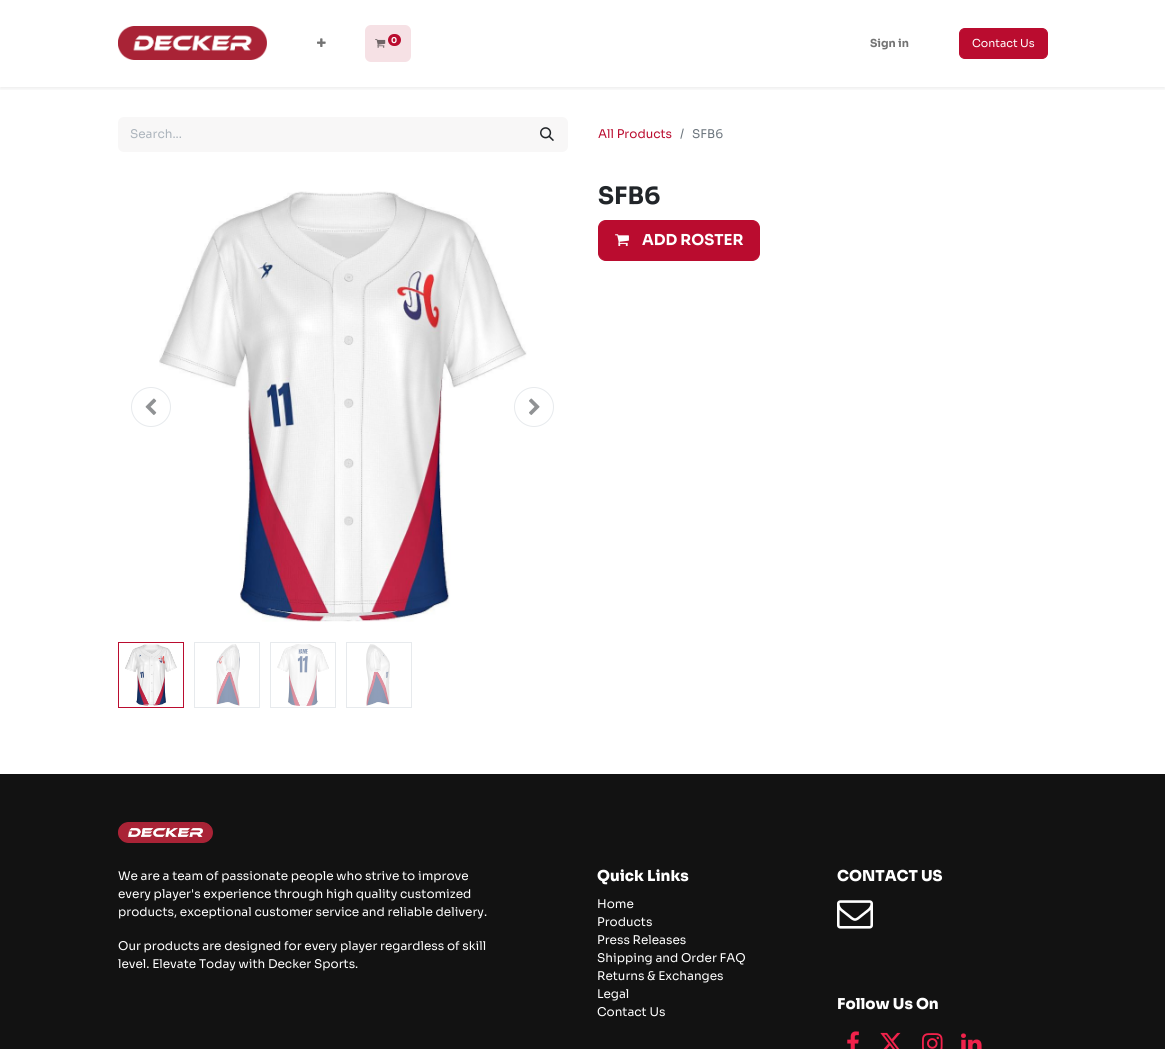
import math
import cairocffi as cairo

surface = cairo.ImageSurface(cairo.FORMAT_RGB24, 1165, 1049)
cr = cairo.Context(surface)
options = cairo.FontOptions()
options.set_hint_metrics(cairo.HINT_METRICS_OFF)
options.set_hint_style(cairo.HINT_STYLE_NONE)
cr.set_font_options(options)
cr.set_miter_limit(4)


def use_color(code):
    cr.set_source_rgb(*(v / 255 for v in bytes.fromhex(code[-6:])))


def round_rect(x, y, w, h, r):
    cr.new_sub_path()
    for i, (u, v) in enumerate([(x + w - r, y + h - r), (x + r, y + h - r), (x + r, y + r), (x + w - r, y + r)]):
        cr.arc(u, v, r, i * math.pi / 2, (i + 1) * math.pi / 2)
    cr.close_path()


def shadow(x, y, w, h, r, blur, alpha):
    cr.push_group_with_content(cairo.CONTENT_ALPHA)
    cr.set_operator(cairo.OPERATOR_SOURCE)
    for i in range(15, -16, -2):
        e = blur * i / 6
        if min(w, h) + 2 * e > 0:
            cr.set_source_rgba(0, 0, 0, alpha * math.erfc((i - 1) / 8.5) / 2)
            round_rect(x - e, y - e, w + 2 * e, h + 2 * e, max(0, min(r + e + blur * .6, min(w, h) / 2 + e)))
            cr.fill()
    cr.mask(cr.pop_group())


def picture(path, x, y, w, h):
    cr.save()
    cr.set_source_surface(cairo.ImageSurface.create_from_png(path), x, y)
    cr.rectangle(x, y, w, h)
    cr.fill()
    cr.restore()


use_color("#ffffff")
cr.paint()
cr.save()
cr.rectangle(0, 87, 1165, 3)
cr.clip()
use_color("#000000")
shadow(0, 2, 1165, 87, 0, 2, 0.07)
cr.restore()
picture("img1.png", 118, 26, 149, 34)
picture("img2.png", 317, 38, 9, 9)
use_color("#f6e1e5")
round_rect(365, 25, 46, 37, 6)
cr.fill()
picture("img3.png", 375, 39, 11, 9)
use_color("#ba0c2f")
round_rect(388, 34, 13, 12, 6)
cr.fill()
cr.select_font_face("Sora", cairo.FONT_SLANT_NORMAL, cairo.FONT_WEIGHT_BOLD)
cr.set_font_size(8)
use_color("#ffffff")
cr.move_to(391, 43)
cr.show_text("0")
cr.set_font_size(11)
use_color("#737373")
cr.move_to(870, 47)
cr.show_text("Sign in")
use_color("#ba0c2f")
round_rect(959.5, 28.5, 88, 30, 5.5)
cr.fill_preserve()
cr.set_line_width(1)
cr.stroke()
cr.select_font_face("Sora")
use_color("#ffffff")
cr.move_to(972, 47)
cr.show_text("Contact Us")
use_color("#f8f7f7")
cr.new_path()
cr.move_to(124, 117)
cr.line_to(528, 117)
cr.line_to(528, 152)
cr.line_to(124, 152)
cr.curve_to(120.5, 152, 118, 149.5, 118, 146)
cr.line_to(118, 123)
cr.curve_to(118, 119.5, 120.5, 117, 124, 117)
cr.close_path()
cr.fill()
cr.set_font_size(12)
use_color("#adb5bd")
cr.move_to(130, 138)
cr.show_text("Search...")
use_color("#f8f7f7")
cr.new_path()
cr.move_to(527, 117)
cr.line_to(562, 117)
cr.curve_to(565.5, 117, 568, 119.5, 568, 123)
cr.line_to(568, 146)
cr.curve_to(568, 149.5, 565.5, 152, 562, 152)
cr.line_to(527, 152)
cr.close_path()
cr.fill()
picture("img4.png", 540, 127, 14, 14)
use_color("#ba0c2f")
cr.move_to(598, 138)
cr.show_text("All Products")
use_color("#6c757d")
cr.move_to(680, 138)
cr.show_text("/")
cr.move_to(692, 138)
cr.show_text("SFB6")
picture("img6.png", 159, 191, 368, 431)
cr.arc(151, 407, 19.5, 0, 2 * math.pi)
use_color("#e7eaed")
cr.stroke()
picture("img5.png", 145, 398, 12, 17)
cr.arc(534, 407, 19.5, 0, 2 * math.pi)
cr.stroke()
picture("img7.png", 529, 398, 11, 17)
cr.rectangle(118.5, 642.5, 65, 65)
use_color("#ba0c2f")
cr.stroke()
picture("img8.png", 125, 644, 52, 62)
cr.rectangle(194.5, 642.5, 65, 65)
use_color("#e7eaed")
cr.stroke()
picture("img9.png", 216, 644, 24, 62)
cr.rectangle(270.5, 642.5, 65, 65)
cr.stroke()
picture("img10.png", 277, 644, 52, 62)
cr.rectangle(346.5, 642.5, 65, 65)
cr.stroke()
picture("img11.png", 366, 644, 24, 62)
cr.select_font_face("Sora", cairo.FONT_SLANT_NORMAL, cairo.FONT_WEIGHT_BOLD)
cr.set_font_size(24)
use_color("#212529")
cr.move_to(598, 204)
cr.show_text("SFB6")
use_color("#ba0c2f")
round_rect(598.5, 220.5, 161, 40, 7.5)
cr.fill_preserve()
cr.stroke()
picture("img12.png", 615, 234, 14, 13)
cr.set_font_size(15)
use_color("#ffffff")
cr.move_to(642, 245)
cr.show_text("ADD ROSTER")
use_color("#121212")
cr.rectangle(0, 774, 1165, 275)
cr.fill()
picture("img13.png", 118, 822, 95, 21)
cr.select_font_face("Sora")
cr.set_font_size(12)
use_color("#ffffff")
cr.move_to(118, 880)
cr.show_text("We are a team of passionate people who strive to improve")
cr.move_to(118, 898)
cr.show_text("every player's experience through high quality customized")
cr.move_to(118, 916)
cr.show_text("products, exceptional customer service and reliable delivery.")
cr.move_to(118, 950)
cr.show_text("Our products are designed for every player regardless of skill")
cr.move_to(118, 968)
cr.show_text("level. Elevate Today with Decker Sports.")
cr.select_font_face("Sora ExtraBold")
cr.set_font_size(15)
cr.move_to(597, 881)
cr.show_text("Quick Links")
cr.select_font_face("Sora")
cr.set_font_size(12)
cr.move_to(597, 908)
cr.show_text("Home")
cr.move_to(597, 926)
cr.show_text("Products")
cr.move_to(597, 944)
cr.show_text("Press Releases")
cr.move_to(597, 962)
cr.show_text("Shipping and Order FAQ")
cr.move_to(597, 980)
cr.show_text("Returns & Exchanges")
cr.move_to(597, 998)
cr.show_text("Legal")
cr.move_to(597, 1016)
cr.show_text("Contact Us")
cr.select_font_face("Sora ExtraBold")
cr.set_font_size(15)
cr.move_to(837, 881)
cr.show_text("CONTACT US")
picture("img14.png", 837, 900, 36, 29)
cr.move_to(837, 1009)
cr.show_text("Follow Us On")
picture("img15.png", 847, 1031, 12, 18)
picture("img16.png", 880, 1032, 21, 17)
picture("img17.png", 922, 1033, 21, 16)
picture("img18.png", 961, 1033, 21, 16)
surface.write_to_png("result.png")
